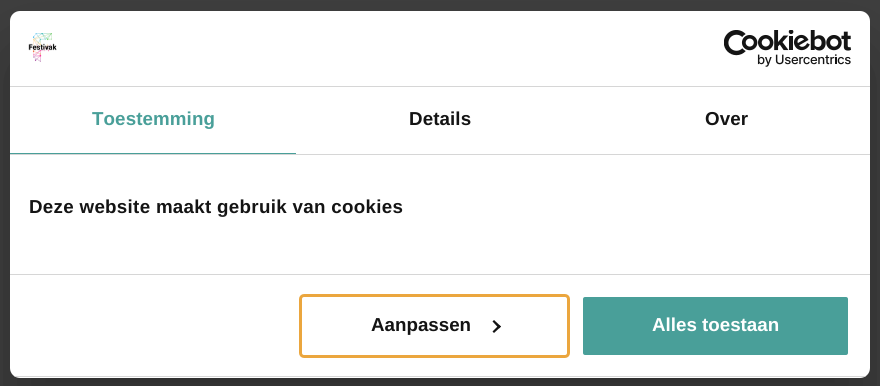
import math
import cairocffi as cairo

surface = cairo.ImageSurface(cairo.FORMAT_RGB24, 880, 386)
cr = cairo.Context(surface)
options = cairo.FontOptions()
options.set_hint_metrics(cairo.HINT_METRICS_OFF)
options.set_hint_style(cairo.HINT_STYLE_NONE)
cr.set_font_options(options)
cr.set_miter_limit(4)


def use_color(code):
    cr.set_source_rgb(*(v / 255 for v in bytes.fromhex(code[-6:])))


def spaced_text(x, y, s, letter, word):
    cr.move_to(x, y)
    for ch in s:
        cr.show_text(ch)
        cr.rel_move_to(letter + word * (ch == ' '), 0)


def round_rect(x, y, w, h, r):
    cr.new_sub_path()
    for i, (u, v) in enumerate([(x + w - r, y + h - r), (x + r, y + h - r), (x + r, y + r), (x + w - r, y + r)]):
        cr.arc(u, v, r, i * math.pi / 2, (i + 1) * math.pi / 2)
    cr.close_path()


def shadow(x, y, w, h, r, blur, alpha):
    cr.push_group_with_content(cairo.CONTENT_ALPHA)
    cr.set_operator(cairo.OPERATOR_SOURCE)
    for i in range(15, -16, -2):
        e = blur * i / 6
        if min(w, h) + 2 * e > 0:
            cr.set_source_rgba(0, 0, 0, alpha * math.erfc((i - 1) / 8.5) / 2)
            round_rect(x - e, y - e, w + 2 * e, h + 2 * e, max(0, min(r + e + blur * .6, min(w, h) / 2 + e)))
            cr.fill()
    cr.mask(cr.pop_group())


def picture(path, x, y, w, h):
    cr.save()
    cr.set_source_surface(cairo.ImageSurface.create_from_png(path), x, y)
    cr.rectangle(x, y, w, h)
    cr.fill()
    cr.restore()


use_color("#404040")
cr.paint()
use_color("#000000")
shadow(10, 51, 860, 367, 10, 42.5, 0.3)
use_color("#ffffff")
round_rect(10, 11, 860, 367, 10)
cr.fill()
use_color("#d6d6d6")
cr.rectangle(10, 86, 860, 1)
cr.fill()
picture("img1.png", 28, 33, 29, 29)
picture("img2.png", 724, 30, 127, 37)
cr.rectangle(10, 154, 860, 1)
cr.fill()
use_color("#499f99")
cr.rectangle(10, 153, 286, 1)
cr.fill()
cr.select_font_face("Liberation Sans", cairo.FONT_SLANT_NORMAL, cairo.FONT_WEIGHT_BOLD)
cr.set_font_size(18.75)
spaced_text(92, 125, "Toestemming", 0.1, 0)
use_color("#141414")
spaced_text(409, 125, "Details", 0.1, 0)
spaced_text(705, 125, "Over", 0.1, 0)
use_color("#d6d6d6")
cr.rectangle(10, 274, 860, 1)
cr.fill()
use_color("#141414")
spaced_text(29, 213, "Deze website maakt gebruik van cookies", 0.3, 0)
gradient = cairo.LinearGradient(432, 273, 432, 213)
gradient.add_color_stop_rgba(0, 1, 1, 1, 1)
gradient.add_color_stop_rgba(0.5, 1, 1, 1, 0.8)
gradient.add_color_stop_rgba(1, 1, 1, 1, 0)
cr.set_source(gradient)
cr.rectangle(218, 214, 9, 3)
cr.fill()
cr.save()
round_rect(10, 11, 860, 367, 10)
cr.clip()
use_color("#d6d6d6")
cr.rectangle(10, 376, 860, 1)
cr.fill()
cr.restore()
round_rect(300.5, 295.5, 268, 61, 3.5)
use_color("#eba63e")
cr.set_line_width(3)
cr.stroke()
use_color("#141414")
cr.move_to(371, 331)
cr.show_text("Aanpassen")
cr.new_path()
cr.move_to(494, 320)
cr.line_to(501, 326.5)
cr.line_to(499, 328.5)
cr.line_to(492.5, 321.5)
cr.close_path()
cr.fill()
cr.new_path()
cr.move_to(499, 325)
cr.line_to(501, 326.5)
cr.line_to(494, 333)
cr.line_to(492.5, 331.5)
cr.close_path()
cr.fill()
use_color("#499f99")
round_rect(581.5, 295.5, 268, 61, 3.5)
cr.fill_preserve()
use_color("#ffffff")
cr.stroke()
cr.move_to(652, 331)
cr.show_text("Alles toestaan")
surface.write_to_png("result.png")
